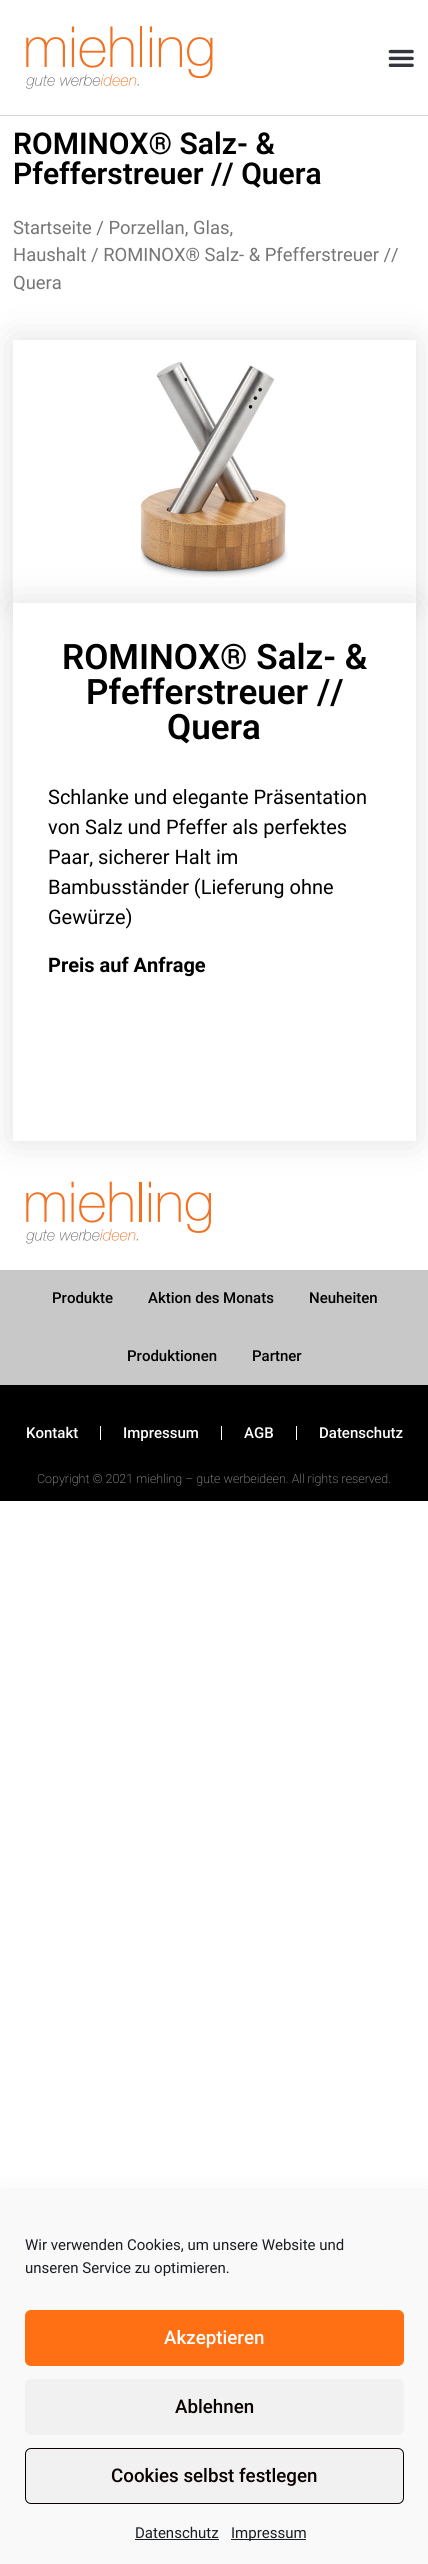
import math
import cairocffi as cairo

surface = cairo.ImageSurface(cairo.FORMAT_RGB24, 428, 2564)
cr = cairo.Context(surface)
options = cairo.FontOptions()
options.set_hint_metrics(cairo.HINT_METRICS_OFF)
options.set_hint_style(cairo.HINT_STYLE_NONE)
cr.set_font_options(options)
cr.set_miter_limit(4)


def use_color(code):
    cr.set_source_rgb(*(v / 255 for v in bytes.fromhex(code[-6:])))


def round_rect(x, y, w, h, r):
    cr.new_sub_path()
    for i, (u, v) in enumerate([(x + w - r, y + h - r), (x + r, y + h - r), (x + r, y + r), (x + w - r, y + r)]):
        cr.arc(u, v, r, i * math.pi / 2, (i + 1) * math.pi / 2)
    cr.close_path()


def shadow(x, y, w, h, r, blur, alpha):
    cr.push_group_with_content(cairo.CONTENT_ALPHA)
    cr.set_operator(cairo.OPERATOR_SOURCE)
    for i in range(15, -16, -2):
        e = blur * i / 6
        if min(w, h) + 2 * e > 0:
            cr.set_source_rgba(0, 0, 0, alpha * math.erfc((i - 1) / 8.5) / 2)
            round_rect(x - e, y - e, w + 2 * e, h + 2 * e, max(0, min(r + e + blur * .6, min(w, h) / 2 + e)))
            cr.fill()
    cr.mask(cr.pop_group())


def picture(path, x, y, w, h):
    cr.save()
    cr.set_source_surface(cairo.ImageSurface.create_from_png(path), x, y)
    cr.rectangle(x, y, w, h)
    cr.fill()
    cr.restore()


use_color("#ffffff")
cr.paint()
use_color("#d6d6d6")
cr.rectangle(0, 115, 428, 1)
cr.fill()
picture("img1.png", 26, 26, 187, 63)
picture("img2.png", 388, 49, 26, 18)
cr.select_font_face("Roboto SemiBold")
cr.set_font_size(30)
use_color("#000000")
cr.move_to(13, 154)
cr.show_text("ROMINOX® Salz- &")
cr.move_to(13, 184)
cr.show_text("Pfefferstreuer // Quera")
cr.select_font_face("Roboto")
cr.set_font_size(18.4)
use_color("#767676")
cr.move_to(13, 234)
cr.show_text("Startseite / Porzellan, Glas,")
cr.move_to(13, 261)
cr.show_text("Haushalt / ROMINOX® Salz- & Pfefferstreuer //")
cr.move_to(13, 289)
cr.show_text("Quera")
cr.save()
cr.set_fill_rule(cairo.FILL_RULE_EVEN_ODD)
cr.new_path()
cr.move_to(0, 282)
cr.line_to(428, 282)
cr.line_to(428, 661)
cr.line_to(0, 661)
cr.close_path()
cr.move_to(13, 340)
cr.line_to(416, 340)
cr.line_to(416, 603)
cr.line_to(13, 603)
cr.close_path()
cr.clip()
use_color("#000000")
shadow(13, 340, 403, 263, 0, 19, 0.12)
cr.restore()
picture("img3.png", 140, 362, 148, 216)
use_color("#000000")
shadow(13, 603, 403, 538, 0, 19, 0.12)
use_color("#ffffff")
cr.rectangle(13, 603, 403, 538)
cr.fill()
cr.select_font_face("Roboto SemiBold")
cr.set_font_size(35)
use_color("#000000")
cr.move_to(62, 669)
cr.show_text("ROMINOX® Salz- &")
cr.move_to(86, 704)
cr.show_text("Pfefferstreuer //")
cr.move_to(167, 739)
cr.show_text("Quera")
cr.select_font_face("Roboto")
cr.set_font_size(20)
cr.move_to(48, 804)
cr.show_text("Schlanke und elegante Präsentation")
cr.move_to(48, 834)
cr.show_text("von Salz und Pfeffer als perfektes")
cr.move_to(48, 864)
cr.show_text("Paar, sicherer Halt im")
cr.move_to(48, 894)
cr.show_text("Bambusständer (Lieferung ohne")
cr.move_to(48, 924)
cr.show_text("Gewürze)")
cr.select_font_face("Roboto", cairo.FONT_SLANT_NORMAL, cairo.FONT_WEIGHT_BOLD)
cr.move_to(48, 972)
cr.show_text("Preis auf Anfrage")
picture("img4.png", 26, 1181, 185, 63)
use_color("#c8c8c8")
cr.rectangle(0, 1270, 428, 115)
cr.fill()
cr.select_font_face("Roboto Medium")
cr.set_font_size(15)
use_color("#000000")
cr.move_to(52, 1303)
cr.show_text("Produkte")
cr.move_to(148, 1303)
cr.show_text("Aktion des Monats")
cr.move_to(309, 1303)
cr.show_text("Neuheiten")
cr.move_to(127, 1361)
cr.show_text("Produktionen")
cr.move_to(252, 1361)
cr.show_text("Partner")
cr.rectangle(0, 1385, 428, 116)
cr.fill()
use_color("#ffffff")
cr.move_to(26, 1438)
cr.show_text("Kontakt")
cr.rectangle(100, 1426, 1, 14)
cr.fill()
cr.move_to(123, 1438)
cr.show_text("Impressum")
cr.rectangle(221, 1426, 1, 14)
cr.fill()
cr.move_to(244, 1438)
cr.show_text("AGB")
cr.rectangle(296, 1426, 1, 14)
cr.fill()
cr.move_to(319, 1438)
cr.show_text("Datenschutz")
cr.select_font_face("Roboto ExtraLight")
cr.set_font_size(12.5)
use_color("#9c9c9c")
cr.move_to(37, 1483)
cr.show_text("Copyright © 2021 miehling – gute werbeideen. All rights reserved.")
use_color("#000000")
shadow(0, 2203, 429, 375, 0, 12.5, 0.19)
use_color("#f9f9f9")
cr.rectangle(0, 2191, 428, 373)
cr.fill()
cr.select_font_face("Roboto")
cr.set_font_size(15)
use_color("#191e23")
cr.move_to(25, 2250)
cr.show_text("Wir verwenden Cookies, um unsere Website und")
cr.move_to(25, 2273)
cr.show_text("unseren Service zu optimieren.")
use_color("#ff7015")
round_rect(25.5, 2310.5, 378, 55, 5.5)
cr.fill_preserve()
cr.set_line_width(1)
cr.stroke()
cr.select_font_face("Roboto Medium")
cr.set_font_size(18.75)
use_color("#ffffff")
cr.move_to(164, 2344)
cr.show_text("Akzeptieren")
use_color("#f1f1f1")
round_rect(25, 2379, 379, 56, 6)
cr.fill()
use_color("#0a0000")
cr.move_to(175, 2413)
cr.show_text("Ablehnen")
use_color("#f1f1f1")
round_rect(25.5, 2448.5, 378, 55, 5.5)
cr.fill_preserve()
use_color("#0a0000")
cr.stroke()
cr.move_to(111, 2482)
cr.show_text("Cookies selbst festlegen")
cr.select_font_face("Roboto")
cr.set_font_size(15)
use_color("#191e23")
cr.move_to(135, 2538)
cr.show_text("Datenschutz")
cr.rectangle(135, 2539, 84, 1)
cr.fill()
cr.rectangle(231, 2539, 75, 1)
cr.fill()
cr.move_to(231, 2538)
cr.show_text("Impressum")
surface.write_to_png("result.png")
